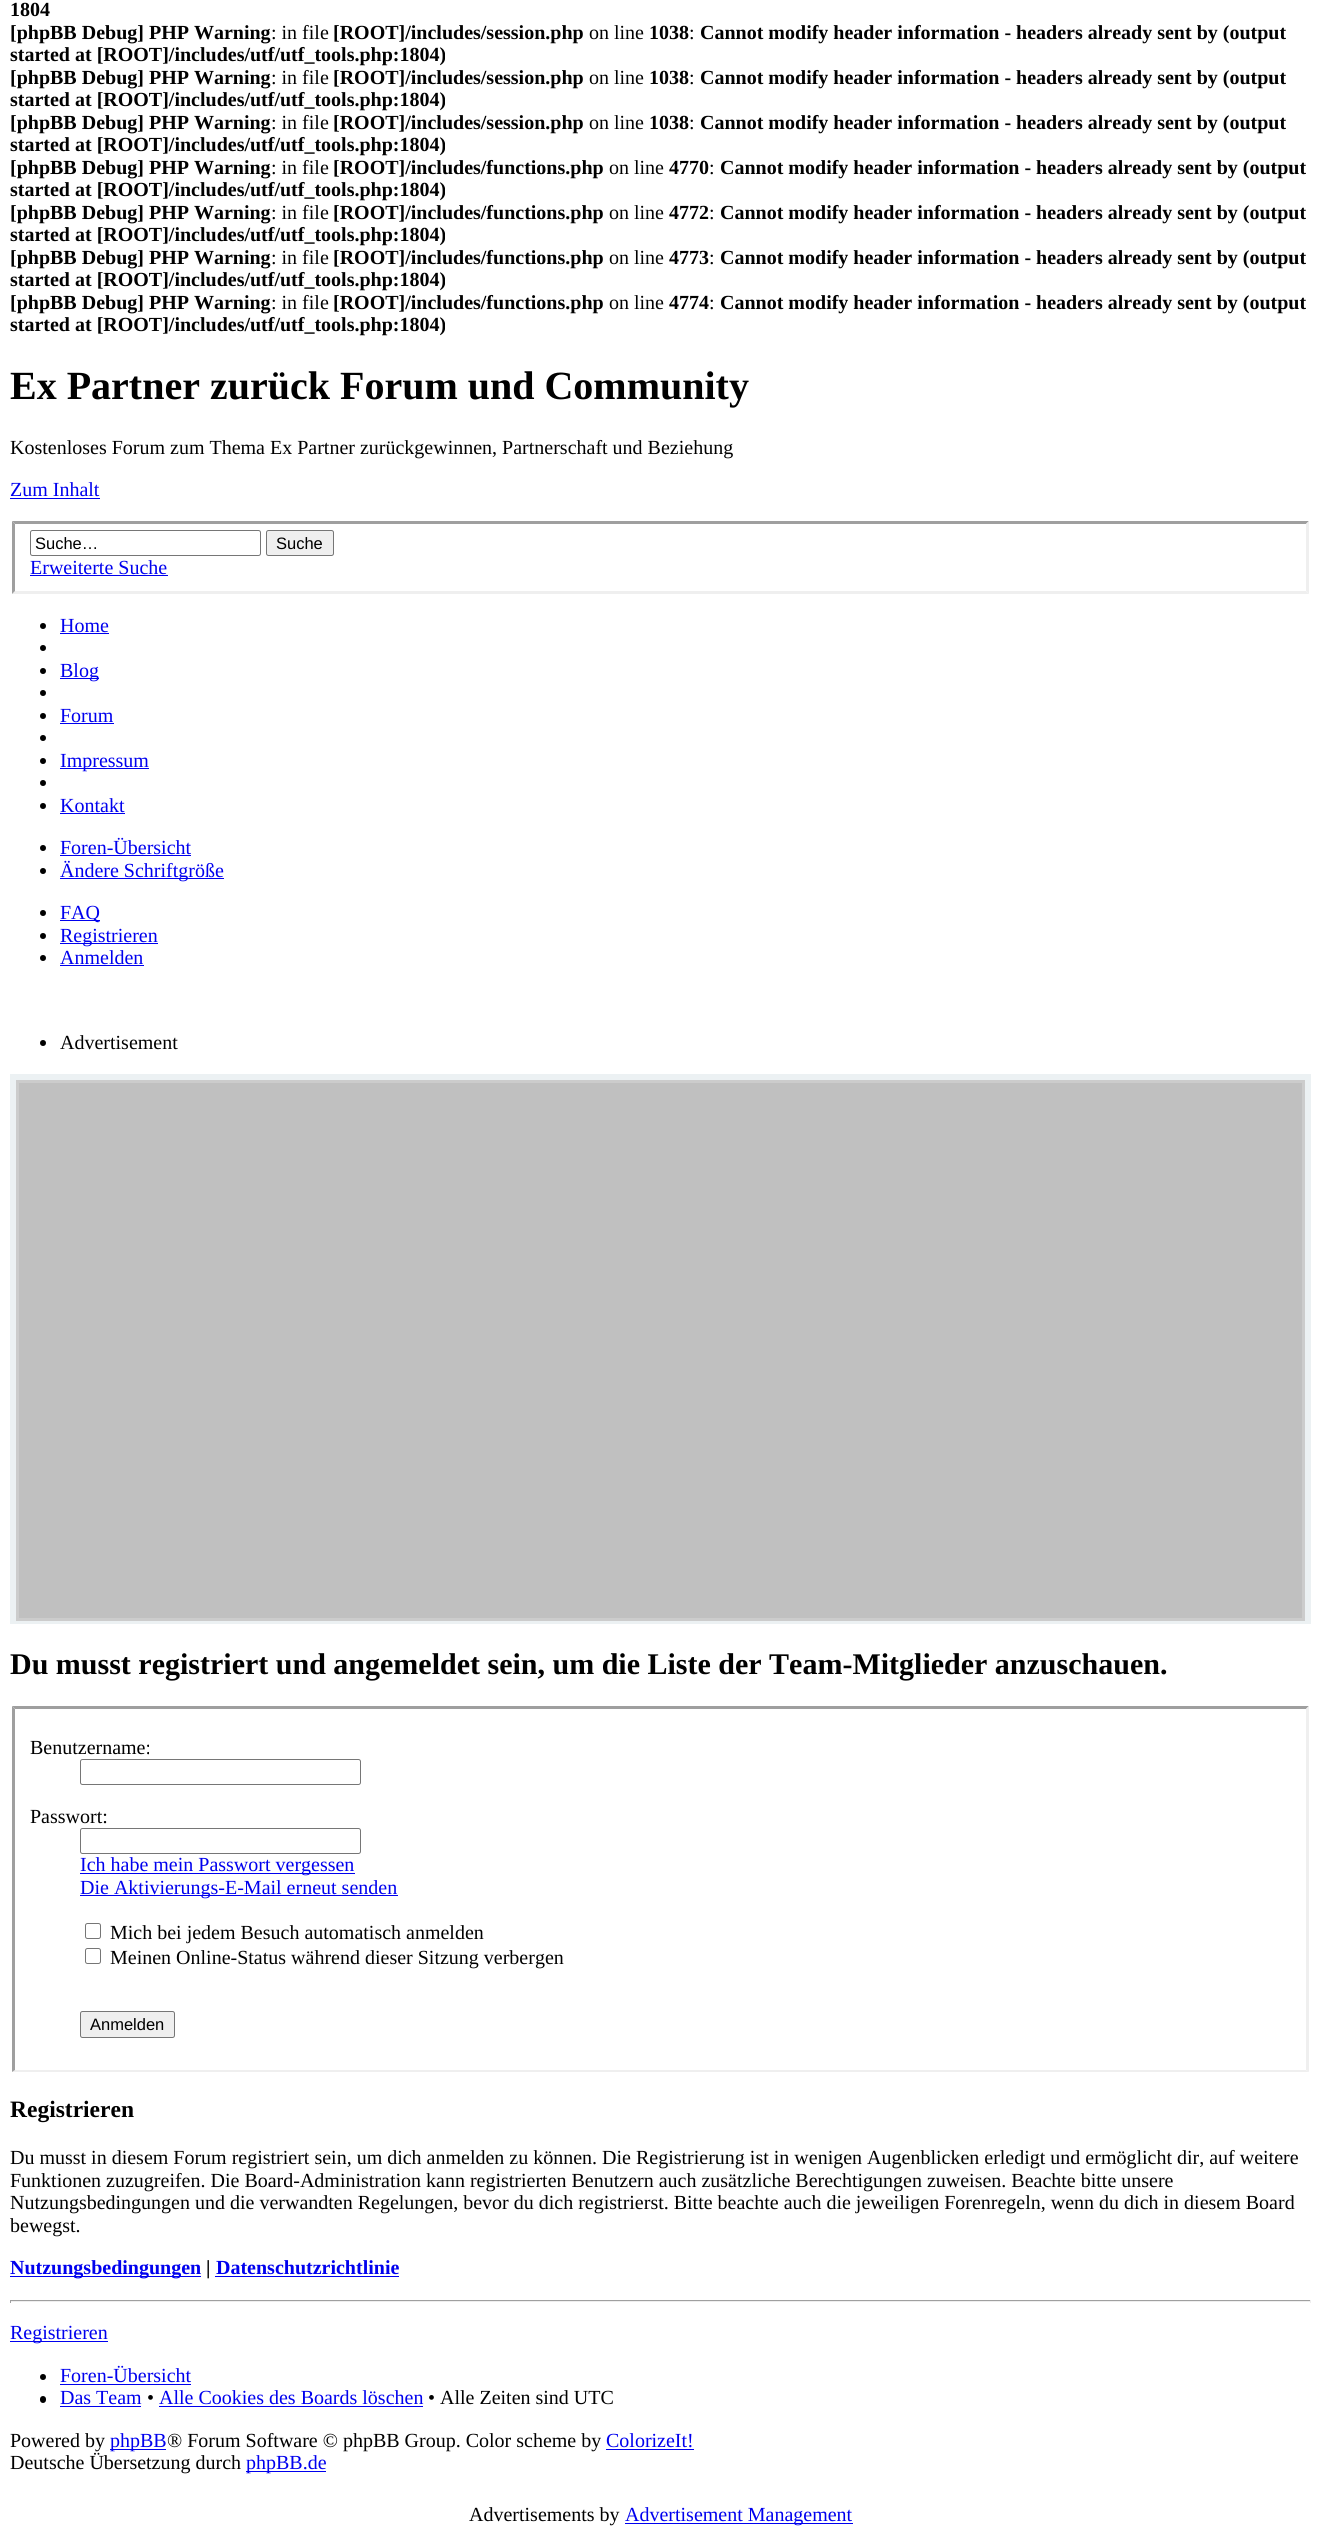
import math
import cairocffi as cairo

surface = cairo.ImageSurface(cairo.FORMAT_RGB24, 1321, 2536)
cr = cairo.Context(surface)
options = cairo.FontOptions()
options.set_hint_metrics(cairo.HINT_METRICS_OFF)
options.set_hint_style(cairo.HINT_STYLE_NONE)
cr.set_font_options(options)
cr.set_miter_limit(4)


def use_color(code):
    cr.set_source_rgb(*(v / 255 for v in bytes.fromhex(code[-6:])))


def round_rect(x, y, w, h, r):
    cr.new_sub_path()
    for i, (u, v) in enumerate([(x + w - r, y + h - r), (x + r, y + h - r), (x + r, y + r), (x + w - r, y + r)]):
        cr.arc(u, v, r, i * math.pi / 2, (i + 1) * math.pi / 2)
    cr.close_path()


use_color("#ffffff")
cr.paint()
cr.select_font_face("Liberation Serif", cairo.FONT_SLANT_NORMAL, cairo.FONT_WEIGHT_BOLD)
cr.set_font_size(20)
use_color("#000000")
cr.move_to(10, 16)
cr.show_text("1804")
cr.move_to(10, 39)
cr.show_text("[phpBB Debug] PHP Warning")
cr.select_font_face("Liberation Serif")
cr.move_to(271, 39)
cr.show_text(": in file")
cr.select_font_face("Liberation Serif", cairo.FONT_SLANT_NORMAL, cairo.FONT_WEIGHT_BOLD)
cr.move_to(333, 39)
cr.show_text("[ROOT]/includes/session.php")
cr.select_font_face("Liberation Serif")
cr.move_to(589, 39)
cr.show_text("on line")
cr.select_font_face("Liberation Serif", cairo.FONT_SLANT_NORMAL, cairo.FONT_WEIGHT_BOLD)
cr.move_to(649, 39)
cr.show_text("1038")
cr.select_font_face("Liberation Serif")
cr.move_to(689, 39)
cr.show_text(":")
cr.select_font_face("Liberation Serif", cairo.FONT_SLANT_NORMAL, cairo.FONT_WEIGHT_BOLD)
cr.move_to(700, 39)
cr.show_text("Cannot modify header information - headers already sent by (output")
cr.move_to(10, 61)
cr.show_text("started at [ROOT]/includes/utf/utf_tools.php:1804)")
cr.move_to(10, 84)
cr.show_text("[phpBB Debug] PHP Warning")
cr.select_font_face("Liberation Serif")
cr.move_to(271, 84)
cr.show_text(": in file")
cr.select_font_face("Liberation Serif", cairo.FONT_SLANT_NORMAL, cairo.FONT_WEIGHT_BOLD)
cr.move_to(333, 84)
cr.show_text("[ROOT]/includes/session.php")
cr.select_font_face("Liberation Serif")
cr.move_to(589, 84)
cr.show_text("on line")
cr.select_font_face("Liberation Serif", cairo.FONT_SLANT_NORMAL, cairo.FONT_WEIGHT_BOLD)
cr.move_to(649, 84)
cr.show_text("1038")
cr.select_font_face("Liberation Serif")
cr.move_to(689, 84)
cr.show_text(":")
cr.select_font_face("Liberation Serif", cairo.FONT_SLANT_NORMAL, cairo.FONT_WEIGHT_BOLD)
cr.move_to(700, 84)
cr.show_text("Cannot modify header information - headers already sent by (output")
cr.move_to(10, 106)
cr.show_text("started at [ROOT]/includes/utf/utf_tools.php:1804)")
cr.move_to(10, 129)
cr.show_text("[phpBB Debug] PHP Warning")
cr.select_font_face("Liberation Serif")
cr.move_to(271, 129)
cr.show_text(": in file")
cr.select_font_face("Liberation Serif", cairo.FONT_SLANT_NORMAL, cairo.FONT_WEIGHT_BOLD)
cr.move_to(333, 129)
cr.show_text("[ROOT]/includes/session.php")
cr.select_font_face("Liberation Serif")
cr.move_to(589, 129)
cr.show_text("on line")
cr.select_font_face("Liberation Serif", cairo.FONT_SLANT_NORMAL, cairo.FONT_WEIGHT_BOLD)
cr.move_to(649, 129)
cr.show_text("1038")
cr.select_font_face("Liberation Serif")
cr.move_to(689, 129)
cr.show_text(":")
cr.select_font_face("Liberation Serif", cairo.FONT_SLANT_NORMAL, cairo.FONT_WEIGHT_BOLD)
cr.move_to(700, 129)
cr.show_text("Cannot modify header information - headers already sent by (output")
cr.move_to(10, 151)
cr.show_text("started at [ROOT]/includes/utf/utf_tools.php:1804)")
cr.move_to(10, 174)
cr.show_text("[phpBB Debug] PHP Warning")
cr.select_font_face("Liberation Serif")
cr.move_to(271, 174)
cr.show_text(": in file")
cr.select_font_face("Liberation Serif", cairo.FONT_SLANT_NORMAL, cairo.FONT_WEIGHT_BOLD)
cr.move_to(333, 174)
cr.show_text("[ROOT]/includes/functions.php")
cr.select_font_face("Liberation Serif")
cr.move_to(609, 174)
cr.show_text("on line")
cr.select_font_face("Liberation Serif", cairo.FONT_SLANT_NORMAL, cairo.FONT_WEIGHT_BOLD)
cr.move_to(669, 174)
cr.show_text("4770")
cr.select_font_face("Liberation Serif")
cr.move_to(709, 174)
cr.show_text(":")
cr.select_font_face("Liberation Serif", cairo.FONT_SLANT_NORMAL, cairo.FONT_WEIGHT_BOLD)
cr.move_to(720, 174)
cr.show_text("Cannot modify header information - headers already sent by (output")
cr.move_to(10, 196)
cr.show_text("started at [ROOT]/includes/utf/utf_tools.php:1804)")
cr.move_to(10, 219)
cr.show_text("[phpBB Debug] PHP Warning")
cr.select_font_face("Liberation Serif")
cr.move_to(271, 219)
cr.show_text(": in file")
cr.select_font_face("Liberation Serif", cairo.FONT_SLANT_NORMAL, cairo.FONT_WEIGHT_BOLD)
cr.move_to(333, 219)
cr.show_text("[ROOT]/includes/functions.php")
cr.select_font_face("Liberation Serif")
cr.move_to(609, 219)
cr.show_text("on line")
cr.select_font_face("Liberation Serif", cairo.FONT_SLANT_NORMAL, cairo.FONT_WEIGHT_BOLD)
cr.move_to(669, 219)
cr.show_text("4772")
cr.select_font_face("Liberation Serif")
cr.move_to(709, 219)
cr.show_text(":")
cr.select_font_face("Liberation Serif", cairo.FONT_SLANT_NORMAL, cairo.FONT_WEIGHT_BOLD)
cr.move_to(720, 219)
cr.show_text("Cannot modify header information - headers already sent by (output")
cr.move_to(10, 241)
cr.show_text("started at [ROOT]/includes/utf/utf_tools.php:1804)")
cr.move_to(10, 264)
cr.show_text("[phpBB Debug] PHP Warning")
cr.select_font_face("Liberation Serif")
cr.move_to(271, 264)
cr.show_text(": in file")
cr.select_font_face("Liberation Serif", cairo.FONT_SLANT_NORMAL, cairo.FONT_WEIGHT_BOLD)
cr.move_to(333, 264)
cr.show_text("[ROOT]/includes/functions.php")
cr.select_font_face("Liberation Serif")
cr.move_to(609, 264)
cr.show_text("on line")
cr.select_font_face("Liberation Serif", cairo.FONT_SLANT_NORMAL, cairo.FONT_WEIGHT_BOLD)
cr.move_to(669, 264)
cr.show_text("4773")
cr.select_font_face("Liberation Serif")
cr.move_to(709, 264)
cr.show_text(":")
cr.select_font_face("Liberation Serif", cairo.FONT_SLANT_NORMAL, cairo.FONT_WEIGHT_BOLD)
cr.move_to(720, 264)
cr.show_text("Cannot modify header information - headers already sent by (output")
cr.move_to(10, 286)
cr.show_text("started at [ROOT]/includes/utf/utf_tools.php:1804)")
cr.move_to(10, 309)
cr.show_text("[phpBB Debug] PHP Warning")
cr.select_font_face("Liberation Serif")
cr.move_to(271, 309)
cr.show_text(": in file")
cr.select_font_face("Liberation Serif", cairo.FONT_SLANT_NORMAL, cairo.FONT_WEIGHT_BOLD)
cr.move_to(333, 309)
cr.show_text("[ROOT]/includes/functions.php")
cr.select_font_face("Liberation Serif")
cr.move_to(609, 309)
cr.show_text("on line")
cr.select_font_face("Liberation Serif", cairo.FONT_SLANT_NORMAL, cairo.FONT_WEIGHT_BOLD)
cr.move_to(669, 309)
cr.show_text("4774")
cr.select_font_face("Liberation Serif")
cr.move_to(709, 309)
cr.show_text(":")
cr.select_font_face("Liberation Serif", cairo.FONT_SLANT_NORMAL, cairo.FONT_WEIGHT_BOLD)
cr.move_to(720, 309)
cr.show_text("Cannot modify header information - headers already sent by (output")
cr.move_to(10, 331)
cr.show_text("started at [ROOT]/includes/utf/utf_tools.php:1804)")
cr.set_font_size(40)
cr.move_to(10, 399)
cr.show_text("Ex Partner zurück Forum und Community")
cr.select_font_face("Liberation Serif")
cr.set_font_size(20)
cr.move_to(10, 454)
cr.show_text("Kostenloses Forum zum Thema Ex Partner zurückgewinnen, Partnerschaft und Beziehung")
use_color("#0000ee")
cr.move_to(10, 496)
cr.show_text("Zum Inhalt")
cr.rectangle(10, 498, 90, 1)
cr.fill()
use_color("#9f9f9f")
cr.new_path()
cr.move_to(12, 521)
cr.line_to(1309, 521)
cr.line_to(1306, 524)
cr.line_to(15, 524)
cr.close_path()
cr.fill()
use_color("#efefef")
cr.new_path()
cr.move_to(1309, 521)
cr.line_to(1309, 594)
cr.line_to(1306, 591)
cr.line_to(1306, 524)
cr.close_path()
cr.fill()
cr.new_path()
cr.move_to(1309, 594)
cr.line_to(12, 594)
cr.line_to(15, 591)
cr.line_to(1306, 591)
cr.close_path()
cr.fill()
use_color("#9f9f9f")
cr.new_path()
cr.move_to(12, 594)
cr.line_to(12, 521)
cr.line_to(15, 524)
cr.line_to(15, 591)
cr.close_path()
cr.fill()
round_rect(30.5, 530.5, 230, 25, 2)
use_color("#767676")
cr.set_line_width(1)
cr.stroke()
cr.select_font_face("Liberation Sans")
cr.set_font_size(16.5)
use_color("#000000")
cr.move_to(35, 549)
cr.show_text("Suche…")
use_color("#efefef")
round_rect(266.5, 530.5, 67, 25, 2)
cr.fill_preserve()
use_color("#767676")
cr.stroke()
use_color("#000000")
cr.move_to(276, 549)
cr.show_text("Suche")
cr.select_font_face("Liberation Serif")
cr.set_font_size(20)
use_color("#0000ee")
cr.move_to(30, 574)
cr.show_text("Erweiterte Suche")
cr.rectangle(30, 575, 138, 1)
cr.fill()
use_color("#000000")
cr.arc(43, 626, 3, 0, 2 * math.pi)
cr.fill()
use_color("#0000ee")
cr.move_to(60, 632)
cr.show_text("Home")
cr.rectangle(60, 633, 49, 1)
cr.fill()
use_color("#000000")
cr.arc(43, 648, 3, 0, 2 * math.pi)
cr.fill()
cr.arc(43, 671, 3, 0, 2 * math.pi)
cr.fill()
use_color("#0000ee")
cr.rectangle(60, 678, 39, 1)
cr.fill()
cr.move_to(60, 677)
cr.show_text("Blog")
use_color("#000000")
cr.new_path()
cr.arc(43, 693, 3, 0, 2 * math.pi)
cr.fill()
cr.arc(43, 716, 3, 0, 2 * math.pi)
cr.fill()
use_color("#0000ee")
cr.move_to(60, 722)
cr.show_text("Forum")
cr.rectangle(60, 723, 54, 1)
cr.fill()
use_color("#000000")
cr.arc(43, 738, 3, 0, 2 * math.pi)
cr.fill()
cr.arc(43, 761, 3, 0, 2 * math.pi)
cr.fill()
use_color("#0000ee")
cr.rectangle(60, 768, 89, 1)
cr.fill()
cr.move_to(60, 767)
cr.show_text("Impressum")
use_color("#000000")
cr.new_path()
cr.arc(43, 783, 3, 0, 2 * math.pi)
cr.fill()
cr.arc(43, 806, 3, 0, 2 * math.pi)
cr.fill()
use_color("#0000ee")
cr.move_to(60, 812)
cr.show_text("Kontakt")
cr.rectangle(60, 813, 65, 1)
cr.fill()
use_color("#000000")
cr.arc(43, 848, 3, 0, 2 * math.pi)
cr.fill()
use_color("#0000ee")
cr.move_to(60, 854)
cr.show_text("Foren-Übersicht")
cr.rectangle(60, 855, 131, 1)
cr.fill()
use_color("#000000")
cr.arc(43, 871, 3, 0, 2 * math.pi)
cr.fill()
use_color("#0000ee")
cr.rectangle(60, 878, 164, 1)
cr.fill()
cr.move_to(60, 877)
cr.show_text("Ändere Schriftgröße")
use_color("#000000")
cr.new_path()
cr.arc(43, 913, 3, 0, 2 * math.pi)
cr.fill()
use_color("#0000ee")
cr.rectangle(60, 920, 40, 1)
cr.fill()
cr.move_to(60, 919)
cr.show_text("FAQ")
use_color("#000000")
cr.new_path()
cr.arc(43, 936, 3, 0, 2 * math.pi)
cr.fill()
use_color("#0000ee")
cr.rectangle(60, 943, 98, 1)
cr.fill()
cr.move_to(60, 942)
cr.show_text("Registrieren")
use_color("#000000")
cr.new_path()
cr.arc(43, 958, 3, 0, 2 * math.pi)
cr.fill()
use_color("#0000ee")
cr.move_to(60, 964)
cr.show_text("Anmelden")
cr.rectangle(60, 965, 84, 1)
cr.fill()
use_color("#000000")
cr.arc(43, 1043, 3, 0, 2 * math.pi)
cr.fill()
cr.move_to(60, 1049)
cr.show_text("Advertisement")
use_color("#ecf1f3")
cr.rectangle(10, 1074, 1301, 550)
cr.fill()
use_color("#c0c0c0")
cr.rectangle(17.5, 1081.5, 1286, 538)
cr.fill_preserve()
use_color("#cccccc")
cr.set_line_width(3)
cr.stroke()
cr.select_font_face("Liberation Serif", cairo.FONT_SLANT_NORMAL, cairo.FONT_WEIGHT_BOLD)
cr.set_font_size(30)
use_color("#000000")
cr.move_to(10, 1674)
cr.show_text("Du musst registriert und angemeldet sein, um die Liste der Team-Mitglieder anzuschauen.")
use_color("#9f9f9f")
cr.new_path()
cr.move_to(12, 1706)
cr.line_to(1309, 1706)
cr.line_to(1306, 1709)
cr.line_to(15, 1709)
cr.close_path()
cr.fill()
use_color("#efefef")
cr.new_path()
cr.move_to(1309, 1706)
cr.line_to(1309, 2072)
cr.line_to(1306, 2070)
cr.line_to(1306, 1709)
cr.close_path()
cr.fill()
cr.new_path()
cr.move_to(1309, 2072)
cr.line_to(12, 2072)
cr.line_to(15, 2070)
cr.line_to(1306, 2070)
cr.close_path()
cr.fill()
use_color("#9f9f9f")
cr.new_path()
cr.move_to(12, 2072)
cr.line_to(12, 1706)
cr.line_to(15, 1709)
cr.line_to(15, 2070)
cr.close_path()
cr.fill()
cr.select_font_face("Liberation Serif")
cr.set_font_size(20)
use_color("#000000")
cr.move_to(30, 1754)
cr.show_text("Benutzername:")
round_rect(80.5, 1759.5, 280, 25, 2)
use_color("#767676")
cr.set_line_width(1)
cr.stroke()
use_color("#000000")
cr.move_to(30, 1823)
cr.show_text("Passwort:")
round_rect(80.5, 1828.5, 280, 25, 2)
use_color("#767676")
cr.stroke()
use_color("#0000ee")
cr.rectangle(80, 1873, 275, 1)
cr.fill()
cr.move_to(80, 1871)
cr.show_text("Ich habe mein Passwort vergessen")
cr.rectangle(80, 1895, 318, 1)
cr.fill()
cr.move_to(80, 1894)
cr.show_text("Die Aktivierungs-E-Mail erneut senden")
round_rect(85.5, 1923.5, 15, 15, 2)
use_color("#767676")
cr.stroke()
use_color("#000000")
cr.move_to(110, 1939)
cr.show_text("Mich bei jedem Besuch automatisch anmelden")
round_rect(85.5, 1948.5, 15, 15, 2)
use_color("#767676")
cr.stroke()
use_color("#000000")
cr.move_to(110, 1964)
cr.show_text("Meinen Online-Status während dieser Sitzung verbergen")
use_color("#efefef")
round_rect(80.5, 2011.5, 94, 26, 2)
cr.fill_preserve()
use_color("#767676")
cr.stroke()
cr.select_font_face("Liberation Sans")
cr.set_font_size(16.5)
use_color("#000000")
cr.move_to(90, 2030)
cr.show_text("Anmelden")
cr.select_font_face("Liberation Serif", cairo.FONT_SLANT_NORMAL, cairo.FONT_WEIGHT_BOLD)
cr.set_font_size(23.5)
cr.move_to(10, 2117)
cr.show_text("Registrieren")
cr.select_font_face("Liberation Serif")
cr.set_font_size(20)
cr.move_to(10, 2164)
cr.show_text("Du musst in diesem Forum registriert sein, um dich anmelden zu können. Die Registrierung ist in wenigen Augenblicken erledigt und ermöglicht dir, auf weitere")
cr.move_to(10, 2187)
cr.show_text("Funktionen zuzugreifen. Die Board-Administration kann registrierten Benutzern auch zusätzliche Berechtigungen zuweisen. Beachte bitte unsere")
cr.move_to(10, 2209)
cr.show_text("Nutzungsbedingungen und die verwandten Regelungen, bevor du dich registrierst. Bitte beachte auch die jeweiligen Forenregeln, wenn du dich in diesem Board")
cr.move_to(10, 2232)
cr.show_text("bewegst.")
use_color("#0000ee")
cr.rectangle(10, 2276, 191, 1)
cr.fill()
cr.select_font_face("Liberation Serif", cairo.FONT_SLANT_NORMAL, cairo.FONT_WEIGHT_BOLD)
cr.move_to(10, 2274)
cr.show_text("Nutzungsbedingungen")
use_color("#000000")
cr.move_to(206, 2274)
cr.show_text("|")
use_color("#0000ee")
cr.move_to(216, 2274)
cr.show_text("Datenschutzrichtlinie")
cr.rectangle(215, 2276, 184, 1)
cr.fill()
use_color("#9f9f9f")
cr.rectangle(10, 2300, 1301, 1)
cr.fill()
use_color("#eeeeee")
cr.rectangle(1310, 2300, 1, 3)
cr.fill()
cr.rectangle(10, 2301, 1301, 1)
cr.fill()
use_color("#9f9f9f")
cr.rectangle(10, 2300, 1, 3)
cr.fill()
use_color("#0000ee")
cr.rectangle(10, 2341, 98, 1)
cr.fill()
cr.select_font_face("Liberation Serif")
cr.move_to(10, 2339)
cr.show_text("Registrieren")
use_color("#000000")
cr.new_path()
cr.arc(43, 2377, 3, 0, 2 * math.pi)
cr.fill()
use_color("#0000ee")
cr.move_to(60, 2382)
cr.show_text("Foren-Übersicht")
cr.rectangle(60, 2384, 131, 1)
cr.fill()
use_color("#000000")
round_rect(40, 2396, 6, 7, 3)
cr.fill()
use_color("#0000ee")
cr.move_to(60, 2404)
cr.show_text("Das Team")
cr.rectangle(60, 2406, 81, 1)
cr.fill()
use_color("#000000")
cr.move_to(147, 2404)
cr.show_text("•")
use_color("#0000ee")
cr.move_to(159, 2404)
cr.show_text("Alle Cookies des Boards löschen")
cr.rectangle(159, 2406, 264, 1)
cr.fill()
use_color("#000000")
cr.move_to(428, 2404)
cr.show_text("• Alle Zeiten sind UTC")
cr.move_to(10, 2447)
cr.show_text("Powered by")
use_color("#0000ee")
cr.rectangle(110, 2449, 56, 1)
cr.fill()
cr.move_to(110, 2447)
cr.show_text("phpBB")
use_color("#000000")
cr.move_to(167, 2447)
cr.show_text("® Forum Software © phpBB Group. Color scheme by")
use_color("#0000ee")
cr.move_to(606, 2447)
cr.show_text("ColorizeIt!")
cr.rectangle(606, 2449, 88, 1)
cr.fill()
use_color("#000000")
cr.move_to(10, 2469)
cr.show_text("Deutsche Übersetzung durch")
use_color("#0000ee")
cr.rectangle(246, 2471, 80, 1)
cr.fill()
cr.move_to(246, 2469)
cr.show_text("phpBB.de")
use_color("#000000")
cr.move_to(469, 2521)
cr.show_text("Advertisements by")
use_color("#0000ee")
cr.rectangle(625, 2523, 228, 1)
cr.fill()
cr.move_to(625, 2521)
cr.show_text("Advertisement Management")
surface.write_to_png("result.png")
